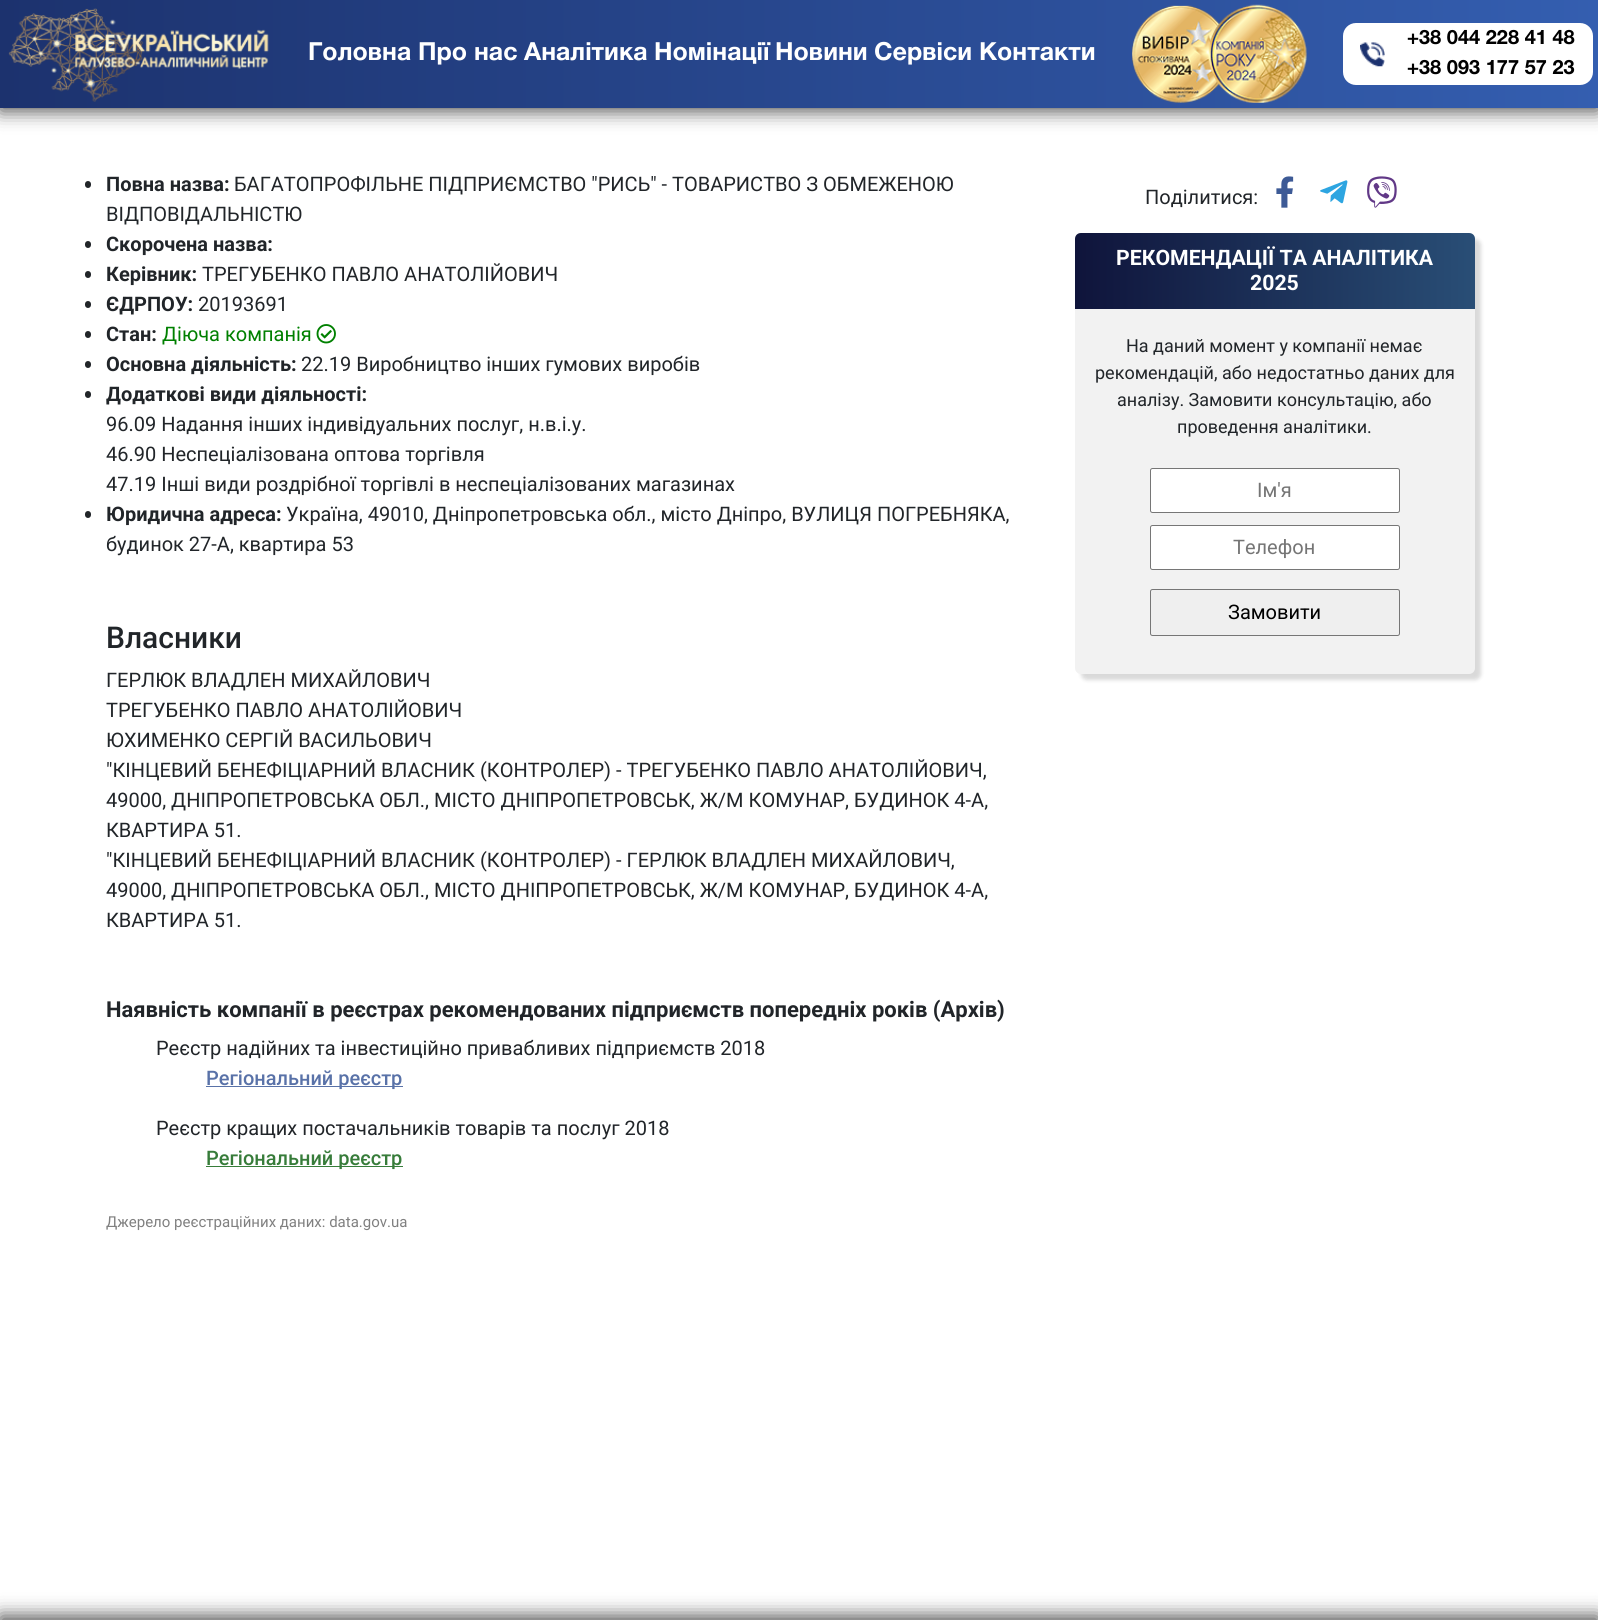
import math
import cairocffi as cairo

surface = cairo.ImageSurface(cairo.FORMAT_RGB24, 1598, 1620)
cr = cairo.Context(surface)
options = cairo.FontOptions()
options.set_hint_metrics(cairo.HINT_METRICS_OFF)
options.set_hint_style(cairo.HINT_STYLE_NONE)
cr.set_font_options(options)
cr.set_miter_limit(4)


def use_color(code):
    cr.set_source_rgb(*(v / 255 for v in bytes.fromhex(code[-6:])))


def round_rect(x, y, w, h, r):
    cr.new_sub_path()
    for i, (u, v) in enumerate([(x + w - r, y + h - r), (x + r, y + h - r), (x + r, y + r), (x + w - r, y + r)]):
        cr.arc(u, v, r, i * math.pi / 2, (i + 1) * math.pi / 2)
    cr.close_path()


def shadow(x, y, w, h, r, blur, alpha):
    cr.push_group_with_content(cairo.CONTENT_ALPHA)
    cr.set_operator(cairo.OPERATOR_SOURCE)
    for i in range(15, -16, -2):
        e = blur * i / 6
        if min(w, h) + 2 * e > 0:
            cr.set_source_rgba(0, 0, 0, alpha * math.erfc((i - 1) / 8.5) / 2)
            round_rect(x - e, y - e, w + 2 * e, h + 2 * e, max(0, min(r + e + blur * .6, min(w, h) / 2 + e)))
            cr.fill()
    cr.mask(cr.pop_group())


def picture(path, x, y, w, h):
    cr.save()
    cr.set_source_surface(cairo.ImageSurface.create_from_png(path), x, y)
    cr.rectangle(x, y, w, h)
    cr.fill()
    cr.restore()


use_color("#ffffff")
cr.paint()
use_color("#000000")
shadow(0, 4, 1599, 107, 0, 9.5, 0.7)
gradient = cairo.LinearGradient(0, 54, 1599, 54)
gradient.add_color_stop_rgba(0, 0.11, 0.196, 0.431, 1)
gradient.add_color_stop_rgba(1, 0.204, 0.369, 0.69, 1)
cr.set_source(gradient)
cr.rectangle(0, 0, 1598, 108)
cr.fill()
picture("img1.png", 8, 8, 261, 94)
cr.select_font_face("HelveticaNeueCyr", cairo.FONT_SLANT_NORMAL, cairo.FONT_WEIGHT_BOLD)
cr.set_font_size(25)
use_color("#ffffff")
cr.move_to(308, 60)
cr.show_text("Головна")
cr.move_to(418, 60)
cr.show_text("Про нас")
cr.move_to(524, 60)
cr.show_text("Аналітика")
cr.move_to(654, 60)
cr.show_text("Номінації")
cr.move_to(775, 60)
cr.show_text("Новини")
cr.move_to(874, 60)
cr.show_text("Сервіси")
cr.move_to(979, 60)
cr.show_text("Контакти")
picture("img2.png", 1132, 4, 175, 99)
round_rect(1343, 23, 250, 62, 13)
cr.fill()
picture("img3.png", 1360, 42, 25, 25)
cr.set_font_size(20)
use_color("#000000")
cr.move_to(1407, 44)
cr.show_text("+38 044 228 41 48")
cr.move_to(1407, 74)
cr.show_text("+38 093 177 57 23")
use_color("#212529")
round_rect(85, 181, 6, 7, 3)
cr.fill()
cr.select_font_face("Roboto", cairo.FONT_SLANT_NORMAL, cairo.FONT_WEIGHT_BOLD)
cr.move_to(106, 191)
cr.show_text("Повна назва:")
cr.select_font_face("Roboto")
cr.move_to(234, 191)
cr.show_text("БАГАТОПРОФІЛЬНЕ ПІДПРИЄМСТВО \"РИСЬ\" - ТОВАРИСТВО З ОБМЕЖЕНОЮ")
cr.move_to(106, 221)
cr.show_text("ВІДПОВІДАЛЬНІСТЮ")
round_rect(85, 241, 6, 7, 3)
cr.fill()
cr.select_font_face("Roboto", cairo.FONT_SLANT_NORMAL, cairo.FONT_WEIGHT_BOLD)
cr.move_to(106, 251)
cr.show_text("Скорочена назва:")
round_rect(85, 271, 6, 7, 3)
cr.fill()
cr.move_to(106, 281)
cr.show_text("Керівник:")
cr.select_font_face("Roboto")
cr.move_to(202, 281)
cr.show_text("ТРЕГУБЕНКО ПАВЛО АНАТОЛІЙОВИЧ")
round_rect(85, 301, 6, 7, 3)
cr.fill()
cr.select_font_face("Roboto", cairo.FONT_SLANT_NORMAL, cairo.FONT_WEIGHT_BOLD)
cr.move_to(106, 311)
cr.show_text("ЄДРПОУ:")
cr.select_font_face("Roboto")
cr.move_to(198, 311)
cr.show_text("20193691")
round_rect(85, 331, 6, 7, 3)
cr.fill()
cr.select_font_face("Roboto", cairo.FONT_SLANT_NORMAL, cairo.FONT_WEIGHT_BOLD)
cr.move_to(106, 341)
cr.show_text("Стан:")
cr.select_font_face("Roboto")
use_color("#008000")
cr.move_to(162, 341)
cr.show_text("Дiюча компанiя")
picture("img4.png", 316, 324, 20, 20)
use_color("#212529")
round_rect(85, 361, 6, 7, 3)
cr.fill()
cr.select_font_face("Roboto", cairo.FONT_SLANT_NORMAL, cairo.FONT_WEIGHT_BOLD)
cr.move_to(106, 371)
cr.show_text("Основна діяльність:")
cr.select_font_face("Roboto")
cr.move_to(301, 371)
cr.show_text("22.19 Виробництво інших гумових виробів")
round_rect(85, 391, 6, 7, 3)
cr.fill()
cr.select_font_face("Roboto", cairo.FONT_SLANT_NORMAL, cairo.FONT_WEIGHT_BOLD)
cr.move_to(106, 401)
cr.show_text("Додаткові види діяльності:")
cr.select_font_face("Roboto")
cr.move_to(106, 431)
cr.show_text("96.09 Надання інших індивідуальних послуг, н.в.і.у.")
cr.move_to(106, 461)
cr.show_text("46.90 Неспеціалізована оптова торгівля")
cr.move_to(106, 491)
cr.show_text("47.19 Інші види роздрібної торгівлі в неспеціалізованих магазинах")
round_rect(85, 511, 6, 7, 3)
cr.fill()
cr.select_font_face("Roboto", cairo.FONT_SLANT_NORMAL, cairo.FONT_WEIGHT_BOLD)
cr.move_to(106, 521)
cr.show_text("Юридична адреса:")
cr.select_font_face("Roboto")
cr.move_to(286, 521)
cr.show_text("Україна, 49010, Дніпропетровська обл., місто Дніпро, ВУЛИЦЯ ПОГРЕБНЯКА,")
cr.move_to(106, 551)
cr.show_text("будинок 27-А, квартира 53")
cr.select_font_face("Roboto Medium")
cr.set_font_size(30)
cr.move_to(106, 648)
cr.show_text("Власники")
cr.select_font_face("Roboto")
cr.set_font_size(20)
cr.move_to(106, 687)
cr.show_text("ГЕРЛЮК ВЛАДЛЕН МИХАЙЛОВИЧ")
cr.move_to(106, 717)
cr.show_text("ТРЕГУБЕНКО ПАВЛО АНАТОЛІЙОВИЧ")
cr.move_to(106, 747)
cr.show_text("ЮХИМЕНКО СЕРГІЙ ВАСИЛЬОВИЧ")
cr.move_to(106, 777)
cr.show_text("\"КІНЦЕВИЙ БЕНЕФІЦІАРНИЙ ВЛАСНИК (КОНТРОЛЕР) - ТРЕГУБЕНКО ПАВЛО АНАТОЛІЙОВИЧ,")
cr.move_to(106, 807)
cr.show_text("49000, ДНІПРОПЕТРОВСЬКА ОБЛ., МІСТО ДНІПРОПЕТРОВСЬК, Ж/М КОМУНАР, БУДИНОК 4-А,")
cr.move_to(106, 837)
cr.show_text("КВАРТИРА 51.")
cr.move_to(106, 867)
cr.show_text("\"КІНЦЕВИЙ БЕНЕФІЦІАРНИЙ ВЛАСНИК (КОНТРОЛЕР) - ГЕРЛЮК ВЛАДЛЕН МИХАЙЛОВИЧ,")
cr.move_to(106, 897)
cr.show_text("49000, ДНІПРОПЕТРОВСЬКА ОБЛ., МІСТО ДНІПРОПЕТРОВСЬК, Ж/М КОМУНАР, БУДИНОК 4-А,")
cr.move_to(106, 927)
cr.show_text("КВАРТИРА 51.")
cr.select_font_face("Roboto", cairo.FONT_SLANT_NORMAL, cairo.FONT_WEIGHT_BOLD)
cr.set_font_size(22)
cr.move_to(106, 1017)
cr.show_text("Наявність компанії в реєстрах рекомендованих підприємств попередніх років (Архів)")
cr.select_font_face("Roboto")
cr.set_font_size(20)
cr.move_to(156, 1055)
cr.show_text("Реєстр надійних та інвестиційно привабливих підприємств 2018")
use_color("#5972a8")
cr.rectangle(206, 1086, 197, 1)
cr.fill()
cr.select_font_face("Roboto Medium")
cr.move_to(206, 1085)
cr.show_text("Регіональний реєстр")
cr.select_font_face("Roboto")
use_color("#212529")
cr.move_to(156, 1135)
cr.show_text("Реєстр кращих постачальників товарів та послуг 2018")
use_color("#377d3a")
cr.rectangle(206, 1166, 197, 1)
cr.fill()
cr.select_font_face("Roboto Medium")
use_color("#377c3a")
cr.move_to(206, 1165)
cr.show_text("Регіональний реєстр")
cr.select_font_face("Roboto")
cr.set_font_size(15)
use_color("#808080")
cr.move_to(106, 1227)
cr.show_text("Джерело реєстраційних даних: data.gov.ua")
cr.set_font_size(20)
use_color("#212529")
cr.move_to(1145, 204)
cr.show_text("Поділитися:")
picture("img5.png", 1276, 176, 18, 32)
picture("img6.png", 1320, 180, 28, 24)
picture("img7.png", 1367, 176, 30, 32)
use_color("#000000")
shadow(1081, 239, 400, 441, 6, 2, 0.15)
use_color("#f2f2f2")
round_rect(1075, 233, 400, 441, 6)
cr.fill()
gradient = cairo.LinearGradient(1075, 271, 1475, 271)
gradient.add_color_stop_rgba(0, 0.059, 0.078, 0.231, 1)
gradient.add_color_stop_rgba(1, 0.161, 0.306, 0.463, 1)
cr.set_source(gradient)
cr.new_path()
cr.move_to(1081, 233)
cr.line_to(1469, 233)
cr.curve_to(1472.5, 233, 1475, 235.5, 1475, 239)
cr.line_to(1475, 309)
cr.line_to(1075, 309)
cr.line_to(1075, 239)
cr.curve_to(1075, 235.5, 1077.5, 233, 1081, 233)
cr.close_path()
cr.fill()
cr.select_font_face("Roboto", cairo.FONT_SLANT_NORMAL, cairo.FONT_WEIGHT_BOLD)
cr.set_font_size(21.25)
use_color("#ffffff")
cr.move_to(1116, 265)
cr.show_text("РЕКОМЕНДАЦІЇ ТА АНАЛІТИКА")
cr.move_to(1250, 290)
cr.show_text("2025")
cr.select_font_face("Roboto")
cr.set_font_size(18)
use_color("#212529")
cr.move_to(1126, 352)
cr.show_text("На даний момент у компанії немає")
cr.move_to(1095, 379)
cr.show_text("рекомендацій, або недостатньо даних для")
cr.move_to(1117, 406)
cr.show_text("аналізу. Замовити консультацію, або")
cr.move_to(1177, 433)
cr.show_text("проведення аналітики.")
use_color("#ffffff")
round_rect(1150.5, 468.5, 249, 44, 2)
cr.fill_preserve()
use_color("#767676")
cr.set_line_width(1)
cr.stroke()
cr.set_font_size(20)
use_color("#757575")
cr.move_to(1257, 497)
cr.show_text("Ім'я")
use_color("#ffffff")
round_rect(1150.5, 525.5, 249, 44, 2)
cr.fill_preserve()
use_color("#767676")
cr.stroke()
use_color("#757575")
cr.move_to(1233, 554)
cr.show_text("Телефон")
use_color("#efefef")
round_rect(1150.5, 589.5, 249, 46, 2)
cr.fill_preserve()
use_color("#767676")
cr.stroke()
use_color("#000000")
cr.move_to(1228, 619)
cr.show_text("Замовити")
use_color("#000000")
shadow(0, 1616, 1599, 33, 0, 9.5, 0.7)
surface.write_to_png("result.png")
